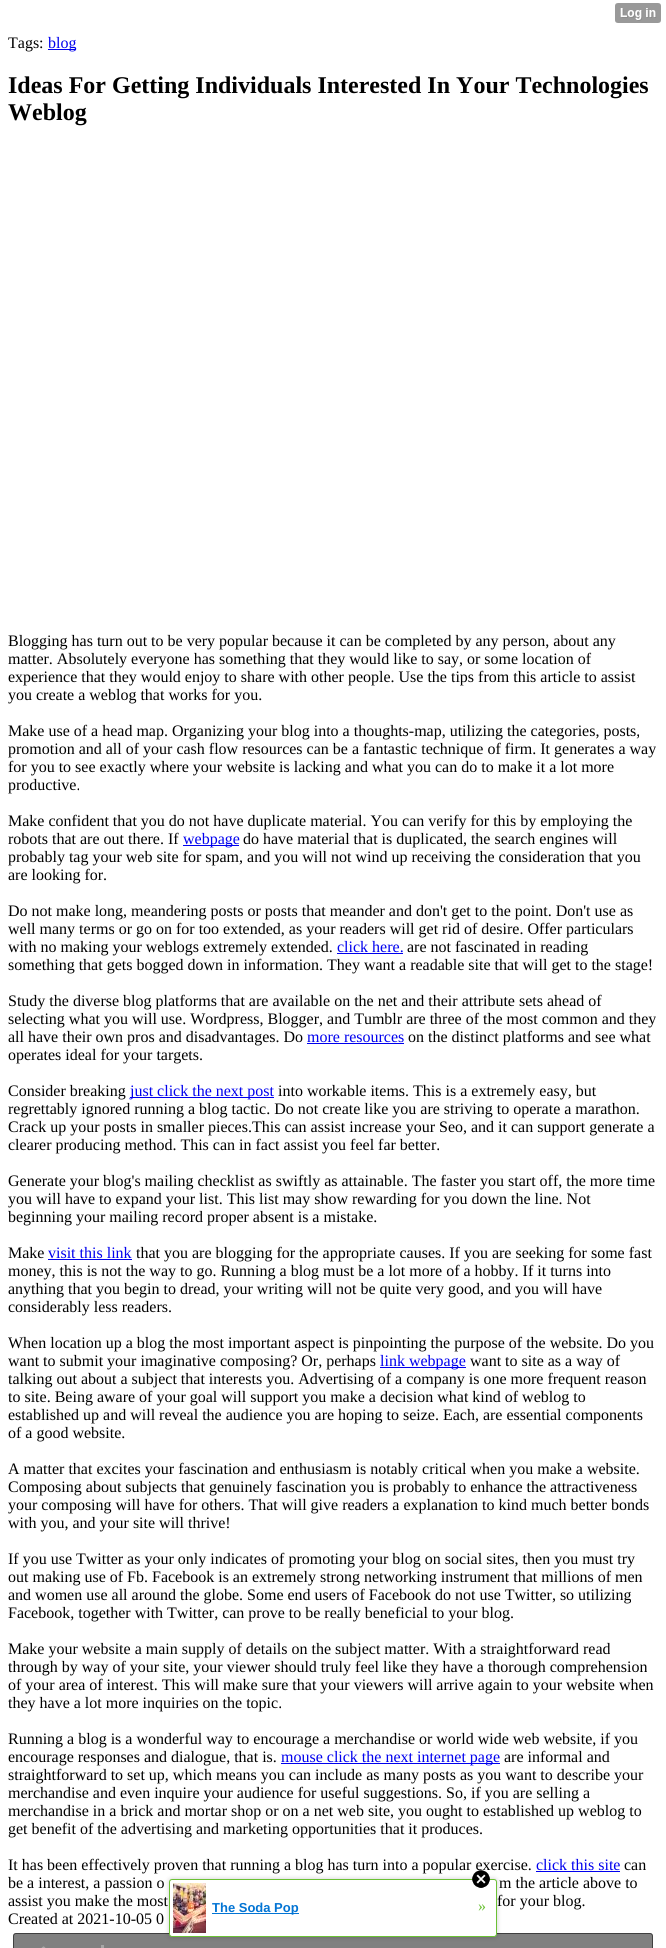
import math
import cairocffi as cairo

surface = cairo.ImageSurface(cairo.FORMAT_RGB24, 666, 1948)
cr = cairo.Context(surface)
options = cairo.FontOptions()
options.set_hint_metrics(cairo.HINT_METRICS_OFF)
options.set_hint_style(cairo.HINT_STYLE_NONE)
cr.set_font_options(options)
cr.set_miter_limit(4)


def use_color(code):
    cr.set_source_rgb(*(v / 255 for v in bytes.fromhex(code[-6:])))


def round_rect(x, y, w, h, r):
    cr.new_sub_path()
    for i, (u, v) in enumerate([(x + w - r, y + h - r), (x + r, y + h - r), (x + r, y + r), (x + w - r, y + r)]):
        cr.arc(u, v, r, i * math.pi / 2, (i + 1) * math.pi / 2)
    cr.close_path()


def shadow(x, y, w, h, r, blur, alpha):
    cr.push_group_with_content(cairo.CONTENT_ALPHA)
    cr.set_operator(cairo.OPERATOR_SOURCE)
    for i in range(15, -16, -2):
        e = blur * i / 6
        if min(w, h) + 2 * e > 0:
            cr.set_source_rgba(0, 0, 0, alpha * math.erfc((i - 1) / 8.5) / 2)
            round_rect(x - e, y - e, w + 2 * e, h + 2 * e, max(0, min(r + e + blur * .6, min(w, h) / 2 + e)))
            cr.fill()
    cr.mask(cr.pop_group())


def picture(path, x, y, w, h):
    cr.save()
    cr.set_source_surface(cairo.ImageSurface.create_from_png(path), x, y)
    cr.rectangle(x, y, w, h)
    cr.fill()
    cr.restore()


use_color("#ffffff")
cr.paint()
picture("img1.png", 615, 3, 46, 20)
cr.select_font_face("Liberation Serif")
cr.set_font_size(16)
use_color("#000000")
cr.move_to(8, 48)
cr.show_text("Tags:")
use_color("#0000ee")
cr.rectangle(48, 49, 28, 1)
cr.fill()
cr.move_to(48, 48)
cr.show_text("blog")
cr.select_font_face("Liberation Serif", cairo.FONT_SLANT_NORMAL, cairo.FONT_WEIGHT_BOLD)
cr.set_font_size(24)
use_color("#000000")
cr.move_to(8, 93)
cr.show_text("Ideas For Getting Individuals Interested In Your Technologies")
cr.move_to(8, 120)
cr.show_text("Weblog")
cr.select_font_face("Liberation Serif")
cr.set_font_size(16)
cr.move_to(8, 646)
cr.show_text("Blogging has turn out to be very popular because it can be completed by any person, about any")
cr.move_to(8, 664)
cr.show_text("matter. Absolutely everyone has something that they would like to say, or some location of")
cr.move_to(8, 682)
cr.show_text("experience that they would enjoy to share with other people. Use the tips from this article to assist")
cr.move_to(8, 700)
cr.show_text("you create a weblog that works for you.")
cr.move_to(8, 736)
cr.show_text("Make use of a head map. Organizing your blog into a thoughts-map, utilizing the categories, posts,")
cr.move_to(8, 754)
cr.show_text("promotion and all of your cash flow resources can be a fantastic technique of firm. It generates a way")
cr.move_to(8, 772)
cr.show_text("for you to see exactly where your website is lacking and what you can do to make it a lot more")
cr.move_to(8, 790)
cr.show_text("productive.")
cr.move_to(8, 826)
cr.show_text("Make confident that you do not have duplicate material. You can verify for this by employing the")
cr.move_to(8, 844)
cr.show_text("robots that are out there. If")
use_color("#0000ee")
cr.rectangle(183, 845, 56, 1)
cr.fill()
cr.move_to(183, 844)
cr.show_text("webpage")
use_color("#000000")
cr.move_to(243, 844)
cr.show_text("do have material that is duplicated, the search engines will")
cr.move_to(8, 862)
cr.show_text("probably tag your web site for spam, and you will not wind up receiving the consideration that you")
cr.move_to(8, 880)
cr.show_text("are looking for.")
cr.move_to(8, 916)
cr.show_text("Do not make long, meandering posts or posts that meander and don't get to the point. Don't use as")
cr.move_to(8, 934)
cr.show_text("well many terms or go on for too extended, as your readers will get rid of desire. Offer particulars")
cr.move_to(8, 952)
cr.show_text("with no making your weblogs extremely extended.")
use_color("#0000ee")
cr.move_to(337, 952)
cr.show_text("click here.")
cr.rectangle(337, 953, 66, 1)
cr.fill()
use_color("#000000")
cr.move_to(407, 952)
cr.show_text("are not fascinated in reading")
cr.move_to(8, 970)
cr.show_text("something that gets bogged down in information. They want a readable site that will get to the stage!")
cr.move_to(8, 1006)
cr.show_text("Study the diverse blog platforms that are available on the net and their attribute sets ahead of")
cr.move_to(8, 1024)
cr.show_text("selecting what you will use. Wordpress, Blogger, and Tumblr are three of the most common and they")
cr.move_to(8, 1042)
cr.show_text("all have their own pros and disadvantages. Do")
use_color("#0000ee")
cr.move_to(307, 1042)
cr.show_text("more resources")
cr.rectangle(307, 1043, 97, 1)
cr.fill()
use_color("#000000")
cr.move_to(408, 1042)
cr.show_text("on the distinct platforms and see what")
cr.move_to(8, 1060)
cr.show_text("operates ideal for your targets.")
cr.move_to(8, 1096)
cr.show_text("Consider breaking")
use_color("#0000ee")
cr.rectangle(130, 1097, 144, 1)
cr.fill()
cr.move_to(130, 1096)
cr.show_text("just click the next post")
use_color("#000000")
cr.move_to(278, 1096)
cr.show_text("into workable items. This is a extremely easy, but")
cr.move_to(8, 1114)
cr.show_text("regrettably ignored running a blog tactic. Do not create like you are striving to operate a marathon.")
cr.move_to(8, 1132)
cr.show_text("Crack up your posts in smaller pieces.This can assist increase your Seo, and it can support generate a")
cr.move_to(8, 1150)
cr.show_text("clearer producing method. This can in fact assist you feel far better.")
cr.move_to(8, 1186)
cr.show_text("Generate your blog's mailing checklist as swiftly as attainable. The faster you start off, the more time")
cr.move_to(8, 1204)
cr.show_text("you will have to expand your list. This list may show rewarding for you down the line. Not")
cr.move_to(8, 1222)
cr.show_text("beginning your mailing record proper absent is a mistake.")
cr.move_to(8, 1258)
cr.show_text("Make")
use_color("#0000ee")
cr.move_to(48, 1258)
cr.show_text("visit this link")
cr.rectangle(48, 1259, 84, 1)
cr.fill()
use_color("#000000")
cr.move_to(136, 1258)
cr.show_text("that you are blogging for the appropriate causes. If you are seeking for some fast")
cr.move_to(8, 1276)
cr.show_text("money, this is not the way to go. Running a blog must be a lot more of a hobby. If it turns into")
cr.move_to(8, 1294)
cr.show_text("anything that you begin to dread, your writing will not be quite very good, and you will have")
cr.move_to(8, 1312)
cr.show_text("considerably less readers.")
cr.move_to(8, 1348)
cr.show_text("When location up a blog the most important aspect is pinpointing the purpose of the website. Do you")
cr.move_to(8, 1366)
cr.show_text("want to submit your imaginative composing? Or, perhaps")
use_color("#0000ee")
cr.rectangle(380, 1367, 86, 1)
cr.fill()
cr.move_to(380, 1366)
cr.show_text("link webpage")
use_color("#000000")
cr.move_to(470, 1366)
cr.show_text("want to site as a way of")
cr.move_to(8, 1384)
cr.show_text("talking out about a subject that interests you. Advertising of a company is one more frequent reason")
cr.move_to(8, 1402)
cr.show_text("to site. Being aware of your goal will support you make a decision what kind of weblog to")
cr.move_to(8, 1420)
cr.show_text("established up and will reveal the audience you are hoping to seize. Each, are essential components")
cr.move_to(8, 1438)
cr.show_text("of a good website.")
cr.move_to(8, 1474)
cr.show_text("A matter that excites your fascination and enthusiasm is notably critical when you make a website.")
cr.move_to(8, 1492)
cr.show_text("Composing about subjects that genuinely fascination you is probably to enhance the attractiveness")
cr.move_to(8, 1510)
cr.show_text("your composing will have for others. That will give readers a explanation to kind much better bonds")
cr.move_to(8, 1528)
cr.show_text("with you, and your site will thrive!")
cr.move_to(8, 1564)
cr.show_text("If you use Twitter as your only indicates of promoting your blog on social sites, then you must try")
cr.move_to(8, 1582)
cr.show_text("out making use of Fb. Facebook is an extremely strong networking instrument that millions of men")
cr.move_to(8, 1600)
cr.show_text("and women use all around the globe. Some end users of Facebook do not use Twitter, so utilizing")
cr.move_to(8, 1618)
cr.show_text("Facebook, together with Twitter, can prove to be really beneficial to your blog.")
cr.move_to(8, 1654)
cr.show_text("Make your website a main supply of details on the subject matter. With a straightforward read")
cr.move_to(8, 1672)
cr.show_text("through by way of your site, your viewer should truly feel like they have a thorough comprehension")
cr.move_to(8, 1690)
cr.show_text("of your area of interest. This will make sure that your viewers will arrive again to your website when")
cr.move_to(8, 1708)
cr.show_text("they have a lot more inquiries on the topic.")
cr.move_to(8, 1744)
cr.show_text("Running a blog is a wonderful way to encourage a merchandise or world wide web website, if you")
cr.move_to(8, 1762)
cr.show_text("encourage responses and dialogue, that is.")
use_color("#0000ee")
cr.rectangle(281, 1763, 219, 1)
cr.fill()
cr.move_to(281, 1762)
cr.show_text("mouse click the next internet page")
use_color("#000000")
cr.move_to(504, 1762)
cr.show_text("are informal and")
cr.move_to(8, 1780)
cr.show_text("straightforward to set up, which means you can include as many posts as you want to describe your")
cr.move_to(8, 1798)
cr.show_text("merchandise and even inquire your audience for useful suggestions. So, if you are selling a")
cr.move_to(8, 1816)
cr.show_text("merchandise in a brick and mortar shop or on a net web site, you ought to established up weblog to")
cr.move_to(8, 1834)
cr.show_text("get benefit of the advertising and marketing opportunities that it produces.")
cr.move_to(8, 1870)
cr.show_text("It has been effectively proven that running a blog has turn into a popular exercise.")
use_color("#0000ee")
cr.move_to(536, 1870)
cr.show_text("click this site")
cr.rectangle(536, 1871, 84, 1)
cr.fill()
use_color("#000000")
cr.move_to(624, 1870)
cr.show_text("can")
cr.move_to(8, 1888)
cr.show_text("be a interest, a passion o")
cr.move_to(499, 1888)
cr.show_text("m the article above to")
cr.move_to(8, 1906)
cr.show_text("assist you make the most")
cr.move_to(497, 1906)
cr.show_text("for your blog.")
cr.move_to(8, 1924)
cr.show_text("Created at 2021-10-05 0")
use_color("#808080")
round_rect(13, 1933, 640, 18, 3)
cr.fill()
round_rect(13.5, 1933.5, 639, 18, 2.5)
cr.set_source_rgba(0, 0, 0, 0.5)
cr.set_line_width(1)
cr.stroke()
picture("img2.png", 41, 1946, 5, 2)
use_color("#a7a7a7")
cr.rectangle(101, 1945, 3, 3)
cr.fill()
use_color("#000000")
shadow(169, 1879, 328, 58, 3, 2.5, 0.2)
use_color("#ffffff")
round_rect(169.5, 1879.5, 327, 57, 2.5)
cr.fill_preserve()
use_color("#6bc135")
cr.stroke()
picture("img3.png", 472, 1870, 18, 18)
picture("img4.png", 173, 1883, 33, 50)
use_color("#0274d4")
cr.rectangle(212, 1913, 87, 1)
cr.fill()
cr.select_font_face("Liberation Sans", cairo.FONT_SLANT_NORMAL, cairo.FONT_WEIGHT_BOLD)
cr.set_font_size(13)
cr.move_to(212, 1912)
cr.show_text("The Soda Pop")
cr.select_font_face("Liberation Serif")
cr.set_font_size(16)
use_color("#6bc135")
cr.move_to(478, 1911)
cr.show_text("»")
surface.write_to_png("result.png")
